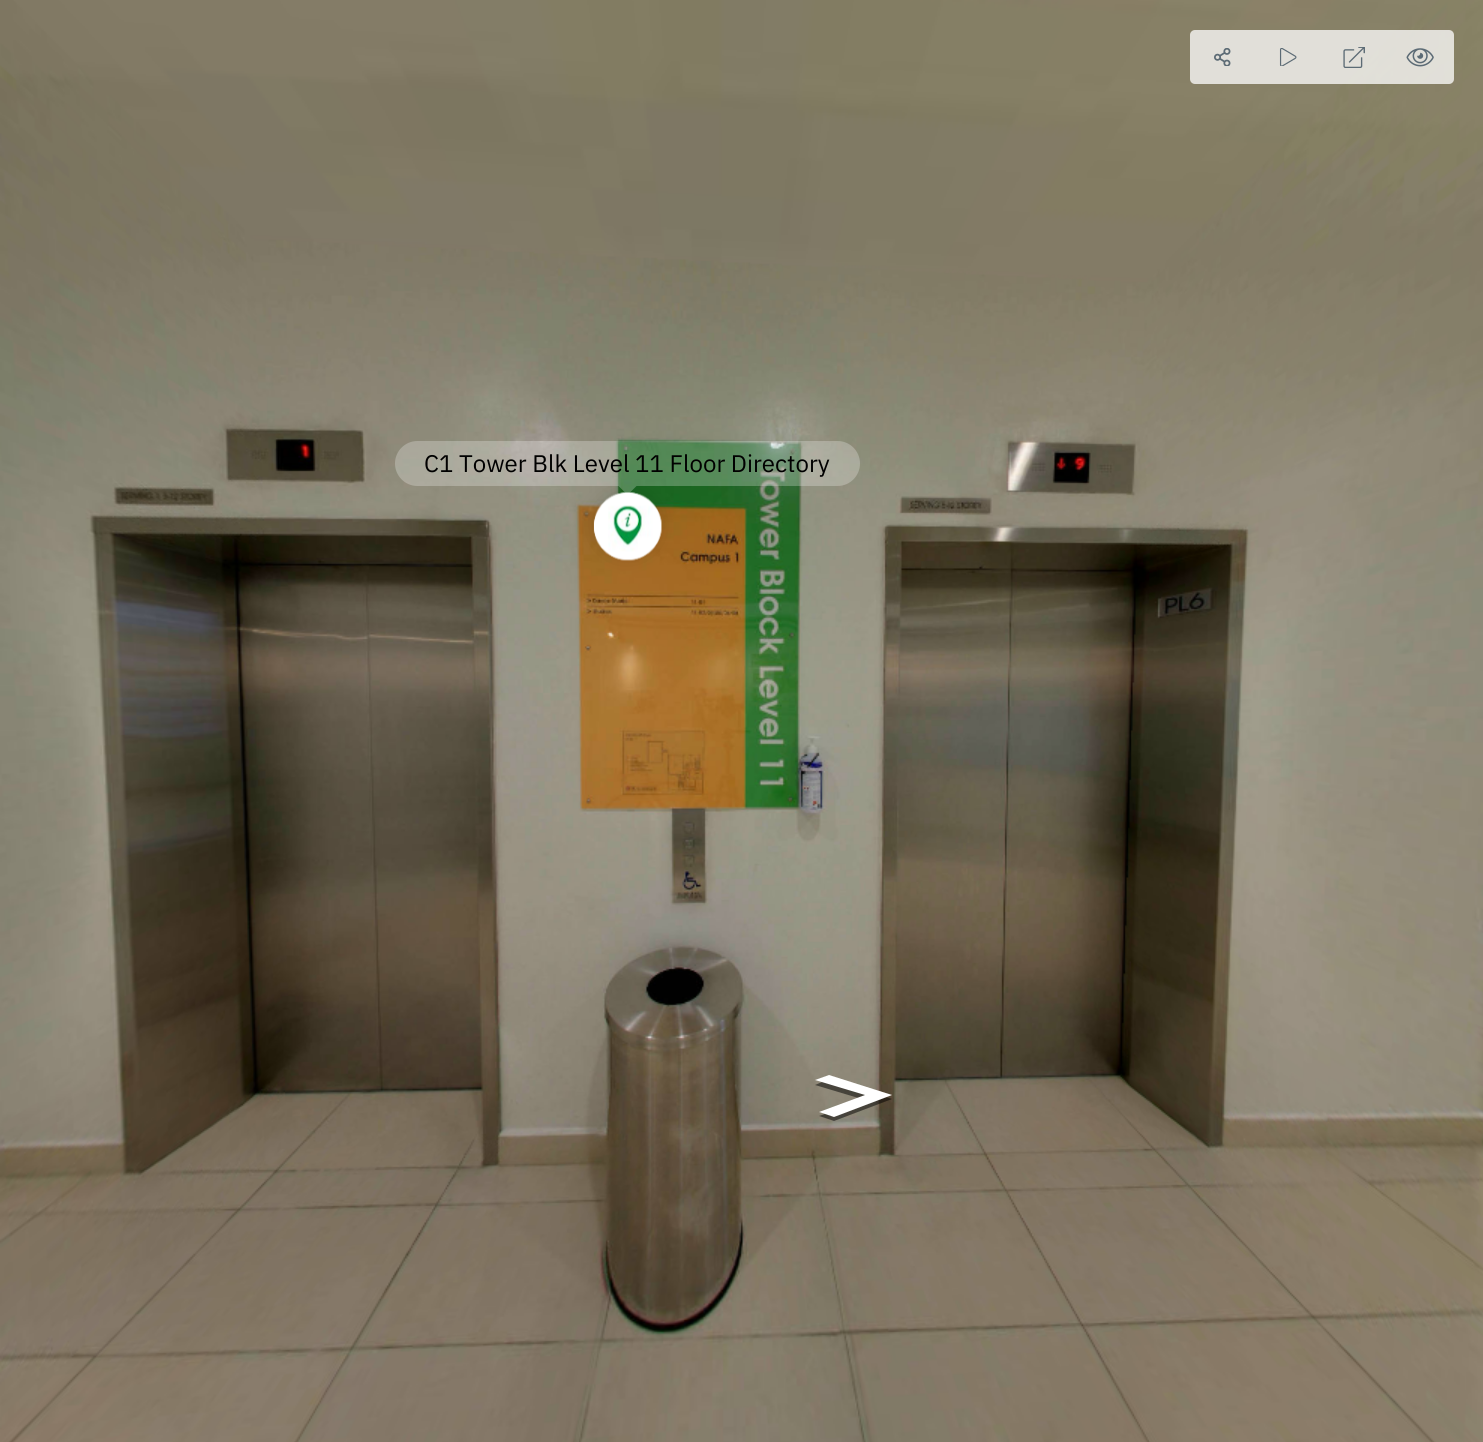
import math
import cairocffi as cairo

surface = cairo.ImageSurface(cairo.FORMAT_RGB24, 1483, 1442)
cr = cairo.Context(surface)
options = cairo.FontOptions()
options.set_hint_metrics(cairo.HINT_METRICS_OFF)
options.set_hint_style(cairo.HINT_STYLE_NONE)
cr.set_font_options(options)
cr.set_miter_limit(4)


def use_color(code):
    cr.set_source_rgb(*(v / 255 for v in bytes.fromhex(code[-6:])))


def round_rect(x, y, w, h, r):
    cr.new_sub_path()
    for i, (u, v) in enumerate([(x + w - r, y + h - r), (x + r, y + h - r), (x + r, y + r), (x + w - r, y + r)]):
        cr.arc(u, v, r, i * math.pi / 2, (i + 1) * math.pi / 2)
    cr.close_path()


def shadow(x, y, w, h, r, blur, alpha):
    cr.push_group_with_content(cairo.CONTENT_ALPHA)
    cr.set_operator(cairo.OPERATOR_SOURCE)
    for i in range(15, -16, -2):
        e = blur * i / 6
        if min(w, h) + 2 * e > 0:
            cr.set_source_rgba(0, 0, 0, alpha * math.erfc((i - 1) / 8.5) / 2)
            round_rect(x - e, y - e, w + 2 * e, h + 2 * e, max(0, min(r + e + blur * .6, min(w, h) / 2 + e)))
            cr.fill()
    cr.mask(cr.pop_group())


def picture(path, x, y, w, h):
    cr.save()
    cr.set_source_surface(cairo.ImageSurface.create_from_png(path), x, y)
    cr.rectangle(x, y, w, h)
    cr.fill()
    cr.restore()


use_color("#ffffff")
cr.paint()
picture("img5.png", 0, 0, 1483, 1442)
cr.set_source_rgba(1, 1, 1, 0.75)
round_rect(1190, 30, 264, 54, 5)
cr.fill()
picture("img1.png", 1214, 48, 17, 18)
picture("img2.png", 1279, 48, 18, 18)
picture("img3.png", 1343, 47, 22, 21)
picture("img4.png", 1406, 48, 28, 19)
use_color("#000000")
shadow(597, 495, 59, 59, 29.5, 11, 0.15)
cr.set_source_rgba(1, 1, 1, 0.25)
round_rect(395, 441, 465, 45, 22.5)
cr.fill()
cr.select_font_face("IBM Plex Sans")
cr.set_font_size(24)
use_color("#000000")
cr.move_to(424, 472)
cr.show_text("C1 Tower Blk Level 11 Floor Directory")
picture("img6.png", 593, 492, 69, 69)
cr.set_source_rgba(1, 1, 1, 0.25)
cr.new_path()
cr.move_to(618.5, 486)
cr.line_to(636.5, 486)
cr.line_to(627.5, 495)
cr.close_path()
cr.fill()
cr.set_source_rgba(0, 0, 0, 0.5)
cr.set_fill_rule(cairo.FILL_RULE_EVEN_ODD)
cr.new_path()
cr.move_to(892, 1099)
cr.line_to(834, 1121)
cr.line_to(819, 1116)
cr.line_to(865, 1100)
cr.line_to(815, 1085)
cr.line_to(829, 1079)
cr.fill()
use_color("#ffffff")
cr.new_path()
cr.move_to(892, 1095)
cr.line_to(834, 1117)
cr.line_to(819, 1112)
cr.line_to(865, 1095)
cr.line_to(815, 1080)
cr.line_to(829, 1075)
cr.fill()
surface.write_to_png("result.png")
